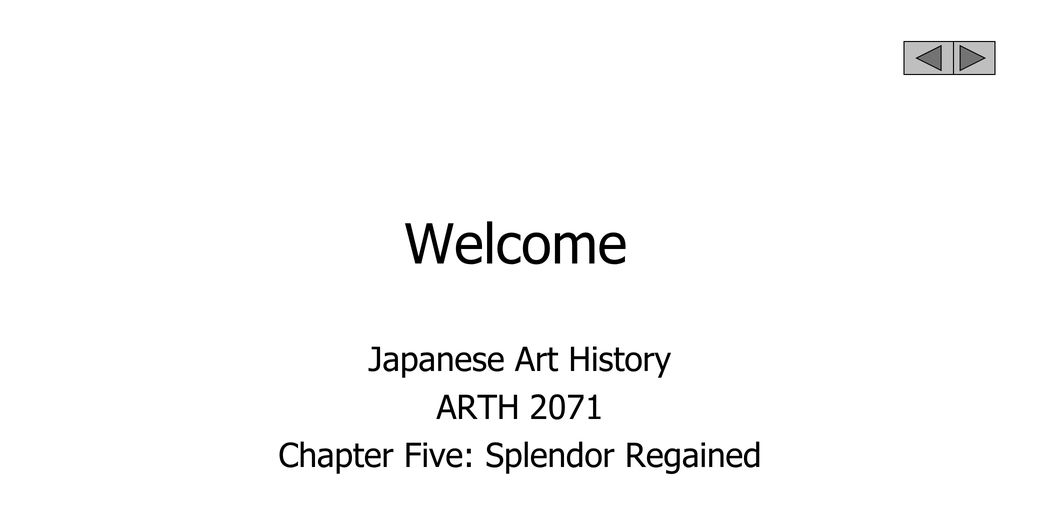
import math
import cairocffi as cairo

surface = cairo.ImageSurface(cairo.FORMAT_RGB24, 1040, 522)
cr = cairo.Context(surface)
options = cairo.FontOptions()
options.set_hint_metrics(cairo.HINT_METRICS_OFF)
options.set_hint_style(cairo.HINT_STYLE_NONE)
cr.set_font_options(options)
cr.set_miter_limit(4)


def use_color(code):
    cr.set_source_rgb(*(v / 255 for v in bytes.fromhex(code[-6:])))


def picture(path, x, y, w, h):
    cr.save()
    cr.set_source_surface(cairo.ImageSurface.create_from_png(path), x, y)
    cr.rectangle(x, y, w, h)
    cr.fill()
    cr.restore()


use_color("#ffffff")
cr.paint()
picture("img1.png", 279, 40, 719, 435)
surface.write_to_png("result.png")
